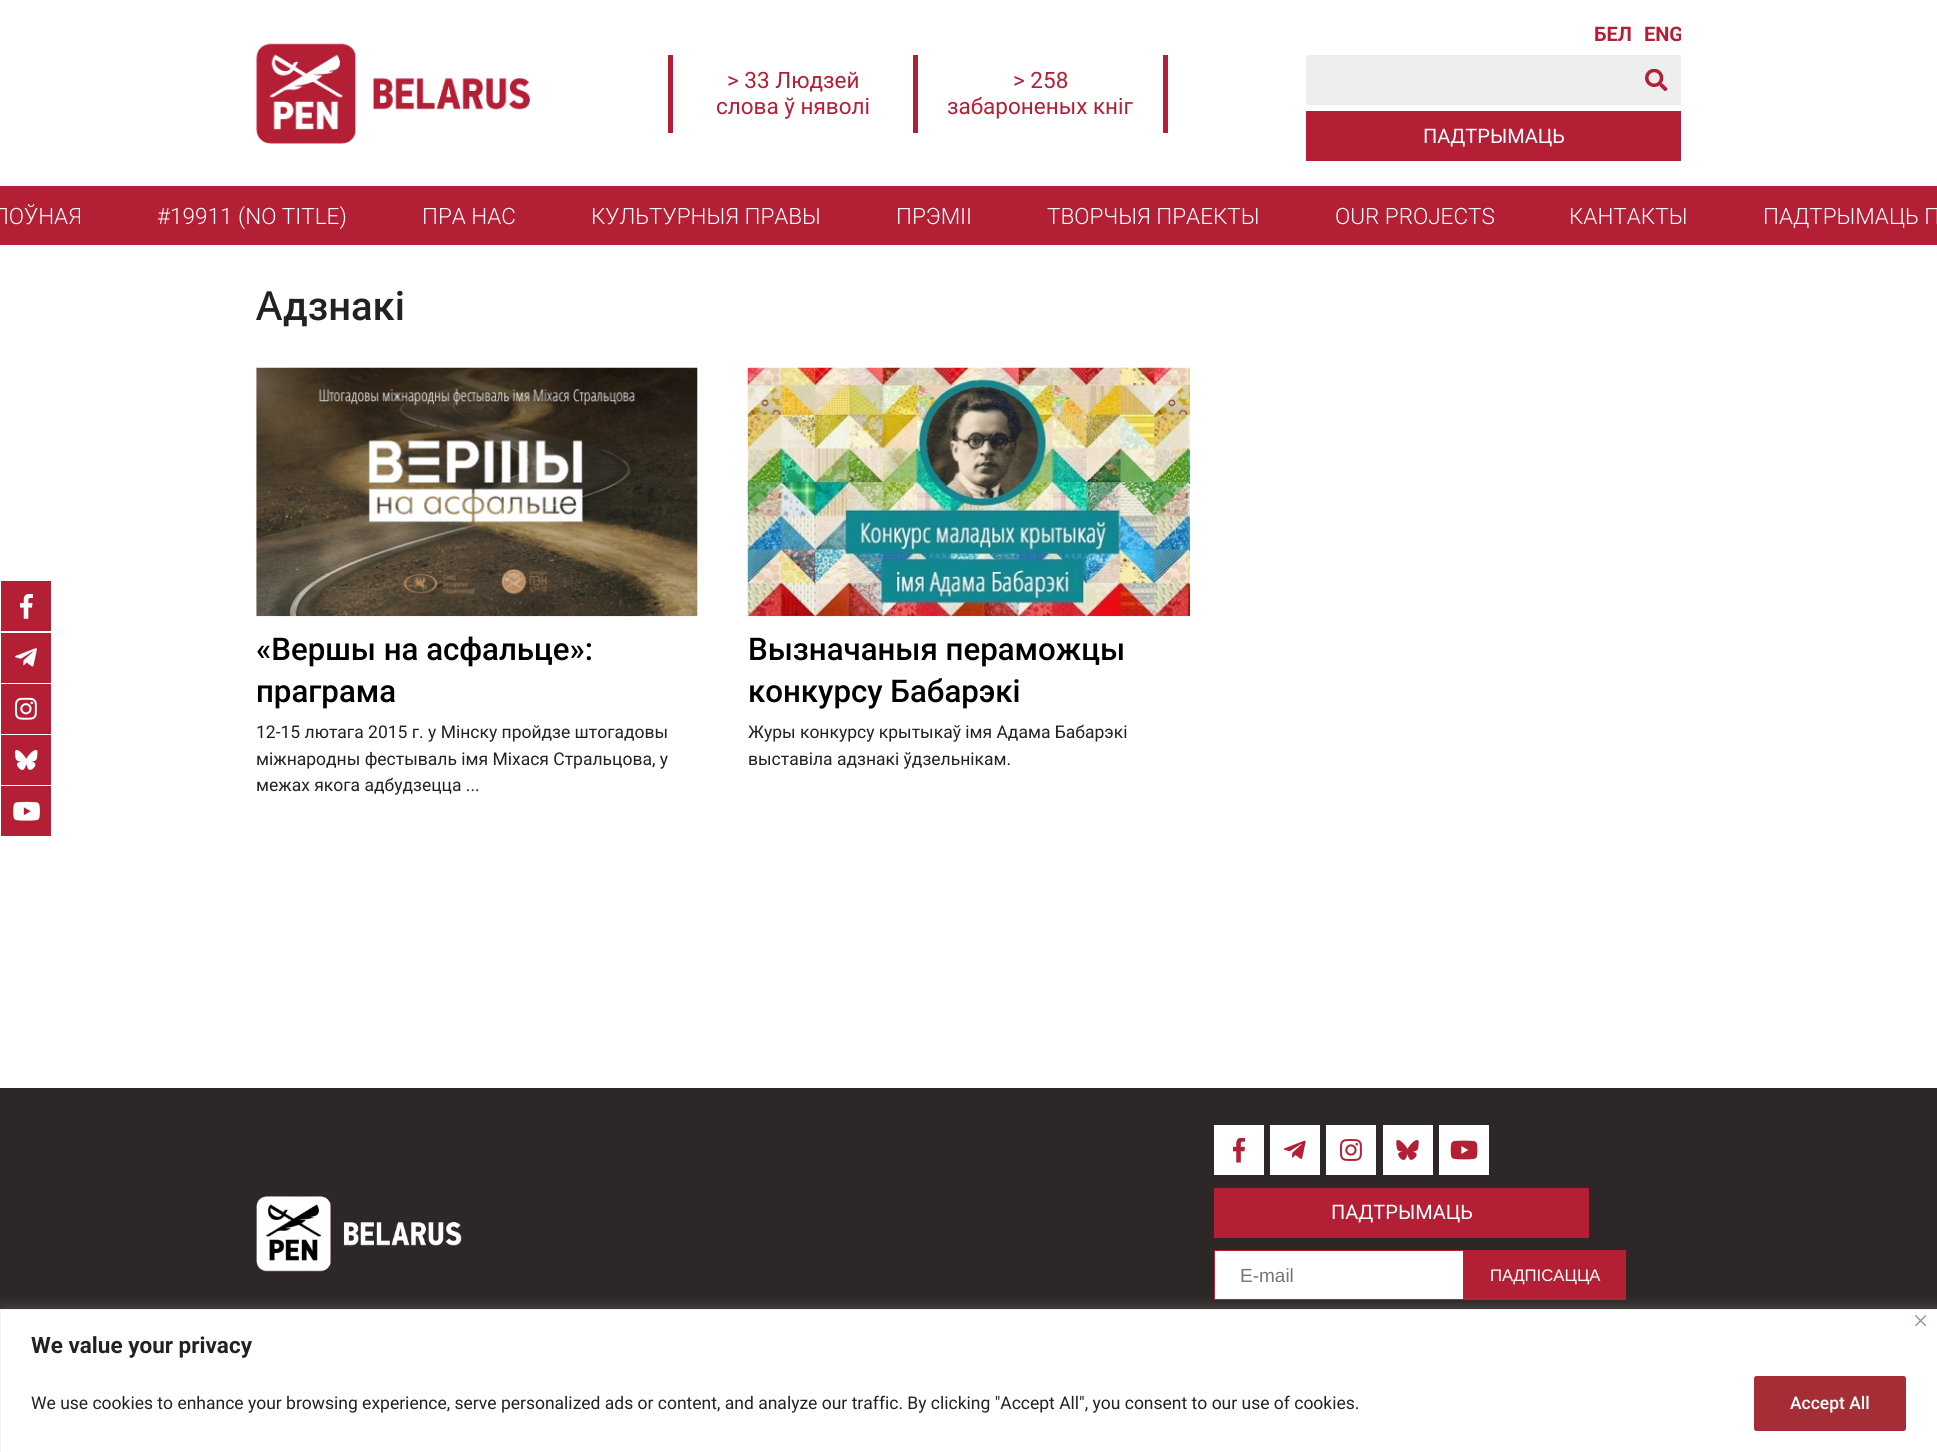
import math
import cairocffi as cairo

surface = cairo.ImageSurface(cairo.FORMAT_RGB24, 1937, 1452)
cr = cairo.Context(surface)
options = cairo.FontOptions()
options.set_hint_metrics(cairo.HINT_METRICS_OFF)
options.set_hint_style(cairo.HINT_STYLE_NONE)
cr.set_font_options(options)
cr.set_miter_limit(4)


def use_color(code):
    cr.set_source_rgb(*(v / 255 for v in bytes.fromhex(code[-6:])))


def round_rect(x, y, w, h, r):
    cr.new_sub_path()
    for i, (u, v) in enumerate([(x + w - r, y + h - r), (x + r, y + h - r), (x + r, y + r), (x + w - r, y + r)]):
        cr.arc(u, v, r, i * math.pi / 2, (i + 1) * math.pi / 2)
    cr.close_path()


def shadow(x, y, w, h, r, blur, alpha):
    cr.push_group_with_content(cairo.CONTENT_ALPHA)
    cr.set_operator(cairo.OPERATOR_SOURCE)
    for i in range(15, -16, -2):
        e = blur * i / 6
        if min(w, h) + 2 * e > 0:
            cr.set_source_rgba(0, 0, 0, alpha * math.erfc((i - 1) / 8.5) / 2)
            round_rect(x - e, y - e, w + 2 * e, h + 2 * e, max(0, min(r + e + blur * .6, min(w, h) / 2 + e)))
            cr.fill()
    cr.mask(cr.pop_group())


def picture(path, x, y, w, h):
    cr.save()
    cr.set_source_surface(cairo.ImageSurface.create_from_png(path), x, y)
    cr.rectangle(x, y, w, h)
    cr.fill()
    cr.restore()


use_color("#ffffff")
cr.paint()
picture("img1.png", 256, 43, 274, 101)
use_color("#b51f36")
cr.rectangle(913, 55, 5, 78)
cr.fill()
cr.rectangle(668, 55, 5, 78)
cr.fill()
cr.select_font_face("Roboto")
cr.set_font_size(22.5)
cr.move_to(727, 88)
cr.show_text("> 33 Людзей")
cr.move_to(716, 114)
cr.show_text("слова ў няволі")
cr.rectangle(1163, 55, 5, 78)
cr.fill()
cr.move_to(1013, 88)
cr.show_text("> 258")
cr.move_to(947, 114)
cr.show_text("забароненых кніг")
cr.select_font_face("Roboto", cairo.FONT_SLANT_NORMAL, cairo.FONT_WEIGHT_BOLD)
cr.set_font_size(20)
cr.move_to(1594, 41)
cr.show_text("БЕЛ")
cr.save()
cr.rectangle(1644, 25, 37, 20)
cr.clip()
cr.move_to(1644, 41)
cr.show_text("ENG")
cr.restore()
use_color("#eeeeee")
cr.rectangle(1306, 55, 375, 50)
cr.fill()
picture("img2.png", 1645, 69, 23, 22)
use_color("#b51f36")
cr.rectangle(1306, 111, 375, 50)
cr.fill()
cr.select_font_face("Roboto")
use_color("#ffffff")
cr.move_to(1423, 143)
cr.show_text("ПАДТРЫМАЦЬ")
use_color("#b51f36")
cr.rectangle(0, 186, 1937, 59)
cr.fill()
cr.select_font_face("Roboto Light")
cr.set_font_size(22.5)
use_color("#ffffff")
cr.move_to(-7, 224)
cr.show_text("ЛОЎНАЯ")
cr.move_to(157, 224)
cr.show_text("#19911 (NO TITLE)")
cr.move_to(422, 224)
cr.show_text("ПРА НАС")
cr.move_to(591, 224)
cr.show_text("КУЛЬТУРНЫЯ ПРАВЫ")
cr.move_to(896, 224)
cr.show_text("ПРЭМІІ")
cr.move_to(1047, 224)
cr.show_text("ТВОРЧЫЯ ПРАЕКТЫ")
cr.move_to(1335, 224)
cr.show_text("OUR PROJECTS")
cr.move_to(1569, 224)
cr.show_text("КАНТАКТЫ")
cr.move_to(1763, 224)
cr.show_text("ПАДТРЫМАЦЬ П")
cr.select_font_face("Noto Sans Medium")
cr.set_font_size(40)
use_color("#222222")
cr.move_to(256, 320)
cr.show_text("А")
cr.select_font_face("Roboto Medium")
cr.move_to(283, 320)
cr.show_text("дзнакі")
use_color("#f9f9f9")
cr.rectangle(256, 368, 442, 248)
cr.fill()
picture("img3.png", 256, 367, 442, 250)
cr.set_font_size(31.25)
use_color("#000000")
cr.move_to(256, 660)
cr.show_text("«Вершы на асфальце»:")
cr.move_to(256, 702)
cr.show_text("праграма")
cr.select_font_face("Roboto")
cr.set_font_size(17.5)
use_color("#222222")
cr.move_to(256, 738)
cr.show_text("12-15 лютага 2015 г. у Мінску пройдзе штогадовы")
cr.move_to(256, 765)
cr.show_text("міжнародны фестываль імя Міхася Стральцова, у")
cr.move_to(256, 791)
cr.show_text("межах якога адбудзецца ...")
picture("img4.png", 747, 367, 443, 250)
cr.select_font_face("Roboto Medium")
cr.set_font_size(31.25)
use_color("#000000")
cr.move_to(748, 660)
cr.show_text("Вызначаныя пераможцы")
cr.move_to(748, 702)
cr.show_text("конкурсу Бабарэкі")
cr.select_font_face("Roboto")
cr.set_font_size(17.5)
use_color("#222222")
cr.move_to(748, 738)
cr.show_text("Журы конкурсу крытыкаў імя Адама Бабарэкі")
cr.move_to(748, 765)
cr.show_text("выставіла адзнакі ўдзельнікам.")
use_color("#2d2728")
cr.rectangle(0, 1088, 1937, 221)
cr.fill()
picture("img5.png", 256, 1196, 206, 76)
use_color("#ffffff")
cr.rectangle(1214, 1125, 50, 50)
cr.fill()
picture("img6.png", 1233, 1138, 12, 25)
cr.rectangle(1270, 1125, 50, 50)
cr.fill()
picture("img7.png", 1284, 1140, 22, 19)
cr.rectangle(1326, 1125, 50, 50)
cr.fill()
picture("img8.png", 1340, 1139, 22, 22)
cr.rectangle(1383, 1125, 50, 50)
cr.fill()
picture("img9.png", 1396, 1140, 23, 20)
cr.rectangle(1439, 1125, 50, 50)
cr.fill()
picture("img10.png", 1450, 1140, 28, 20)
use_color("#b51f36")
cr.rectangle(1214, 1188, 375, 50)
cr.fill()
cr.set_font_size(20)
use_color("#ffffff")
cr.move_to(1331, 1219)
cr.show_text("ПАДТРЫМАЦЬ")
cr.rectangle(1214.5, 1250.5, 249, 49)
cr.fill_preserve()
use_color("#b51f36")
cr.set_line_width(1)
cr.stroke()
cr.select_font_face("Liberation Sans")
cr.set_font_size(19)
use_color("#757575")
cr.move_to(1240, 1282)
cr.show_text("E-mail")
use_color("#b51f36")
cr.rectangle(1464, 1250, 162, 50)
cr.fill()
cr.set_font_size(16.75)
use_color("#ffffff")
cr.move_to(1490, 1281)
cr.show_text("ПАДПIСАЦЦА")
use_color("#b51f36")
cr.rectangle(1, 581, 50, 50)
cr.fill()
picture("img11.png", 20, 594, 13, 25)
cr.rectangle(1, 633, 50, 50)
cr.fill()
picture("img12.png", 15, 648, 22, 19)
cr.rectangle(1, 684, 50, 50)
cr.fill()
picture("img13.png", 15, 697, 22, 23)
cr.rectangle(1, 735, 50, 50)
cr.fill()
picture("img14.png", 15, 750, 23, 20)
cr.rectangle(1, 786, 50, 50)
cr.fill()
picture("img15.png", 13, 801, 27, 20)
use_color("#acabab")
shadow(0, 1308, 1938, 143, 0, 6, 0.3)
use_color("#ffffff")
cr.rectangle(0.5, 1309.5, 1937, 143)
cr.fill_preserve()
use_color("#f4f4f4")
cr.stroke()
picture("img16.png", 1915, 1315, 11, 11)
cr.select_font_face("Roboto", cairo.FONT_SLANT_NORMAL, cairo.FONT_WEIGHT_BOLD)
cr.set_font_size(22.5)
use_color("#222222")
cr.move_to(31, 1353)
cr.show_text("We value your privacy")
cr.select_font_face("Roboto")
cr.set_font_size(17.5)
cr.move_to(31, 1409)
cr.show_text("We use cookies to enhance your browsing experience, serve personalized ads or content, and analyze our traffic. By clicking \"Accept All\", you consent to our use of cookies.")
use_color("#a52d36")
round_rect(1755.5, 1377.5, 149, 52, 1)
cr.fill_preserve()
cr.set_line_width(3)
cr.stroke()
cr.select_font_face("Roboto Medium")
use_color("#ffffff")
cr.move_to(1790, 1409)
cr.show_text("Accept All")
surface.write_to_png("result.png")
